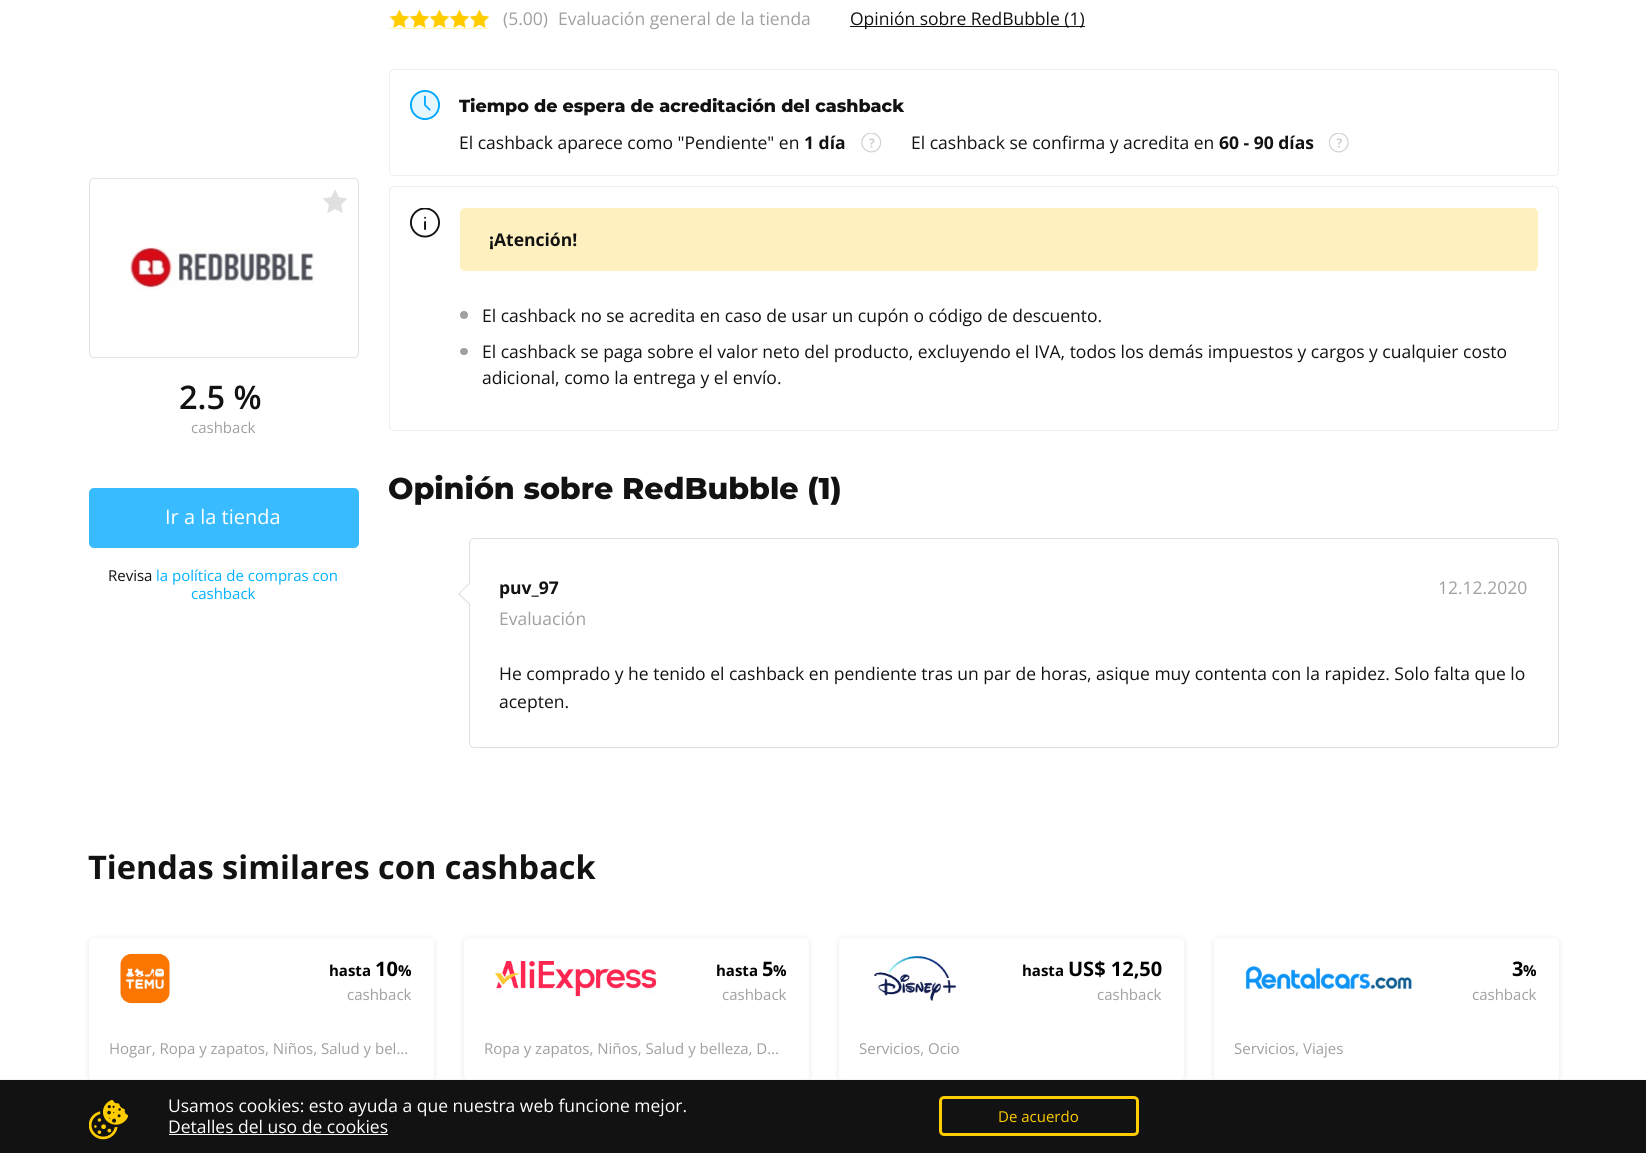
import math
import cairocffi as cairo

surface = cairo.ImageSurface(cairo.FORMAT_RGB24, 1646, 1153)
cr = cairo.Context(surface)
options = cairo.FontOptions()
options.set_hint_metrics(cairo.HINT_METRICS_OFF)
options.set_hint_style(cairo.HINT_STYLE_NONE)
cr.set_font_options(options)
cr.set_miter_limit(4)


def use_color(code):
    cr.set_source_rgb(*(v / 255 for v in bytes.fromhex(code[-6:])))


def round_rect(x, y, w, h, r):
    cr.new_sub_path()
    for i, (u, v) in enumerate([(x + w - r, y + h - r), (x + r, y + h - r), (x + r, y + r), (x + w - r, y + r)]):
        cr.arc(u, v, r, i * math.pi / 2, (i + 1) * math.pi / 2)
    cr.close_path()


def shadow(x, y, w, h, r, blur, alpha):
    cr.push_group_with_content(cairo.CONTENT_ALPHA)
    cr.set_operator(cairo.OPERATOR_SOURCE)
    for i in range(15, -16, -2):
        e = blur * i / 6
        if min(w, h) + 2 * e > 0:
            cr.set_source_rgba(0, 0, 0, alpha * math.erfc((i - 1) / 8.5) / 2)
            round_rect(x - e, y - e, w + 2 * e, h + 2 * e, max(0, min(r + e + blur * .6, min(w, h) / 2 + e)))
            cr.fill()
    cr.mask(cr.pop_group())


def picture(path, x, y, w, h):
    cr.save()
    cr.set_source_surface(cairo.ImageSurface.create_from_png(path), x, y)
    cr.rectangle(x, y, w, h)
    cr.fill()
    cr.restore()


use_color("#ffffff")
cr.paint()
round_rect(89.5, 178.5, 269, 179, 4.5)
use_color("#e2e2e2")
cr.set_line_width(1)
cr.stroke()
picture("img1.png", 323, 190, 25, 23)
picture("img2.png", 130, 247, 184, 43)
cr.select_font_face("Open Sans SemiBold")
cr.set_font_size(32.5)
use_color("#121212")
cr.move_to(179, 409)
cr.show_text("2.5 %")
cr.select_font_face("Open Sans")
cr.set_font_size(15)
use_color("#a0a0a0")
cr.move_to(191, 433)
cr.show_text("cashback")
use_color("#39bcff")
round_rect(89, 488, 270, 60, 5)
cr.fill()
cr.set_font_size(20)
use_color("#ffffff")
cr.move_to(165, 524)
cr.show_text("Ir a la tienda")
cr.set_font_size(15)
use_color("#121212")
cr.move_to(108, 581)
cr.show_text("Revisa")
use_color("#00b0ff")
cr.move_to(156, 581)
cr.show_text("la política de compras con")
cr.move_to(191, 599)
cr.show_text("cashback")
use_color("#ffcc00")
cr.rectangle(389, 9, 100, 20)
cr.fill()
picture("img3.png", 389, 9, 20, 20)
picture("img3.png", 409, 9, 20, 20)
picture("img3.png", 429, 9, 20, 20)
picture("img3.png", 449, 9, 20, 20)
picture("img3.png", 469, 9, 20, 20)
cr.set_font_size(17.5)
use_color("#a0a0a0")
cr.move_to(503, 25)
cr.show_text("(5.00)")
cr.move_to(558, 25)
cr.show_text("Evaluación general de la tienda")
use_color("#121212")
cr.rectangle(850, 26, 235, 1)
cr.fill()
cr.move_to(850, 25)
cr.show_text("Opinión sobre RedBubble (1)")
round_rect(389.5, 69.5, 1169, 106, 4.5)
use_color("#eeeeee")
cr.stroke()
use_color("#e6f6ff")
cr.arc(425, 105, 15, 0, 2 * math.pi)
cr.fill()
picture("img4.png", 410, 90, 30, 30)
cr.select_font_face("Montserrat ExtraBold")
use_color("#121212")
cr.move_to(459, 112)
cr.show_text("Tiempo de espera de acreditación del cashback")
cr.select_font_face("Open Sans")
cr.move_to(459, 149)
cr.show_text("El cashback aparece como \"Pendiente\" en")
cr.select_font_face("Open Sans", cairo.FONT_SLANT_NORMAL, cairo.FONT_WEIGHT_BOLD)
cr.move_to(804, 149)
cr.show_text("1 día")
picture("img5.png", 861, 133, 20, 20)
cr.select_font_face("Open Sans")
cr.move_to(911, 149)
cr.show_text("El cashback se confirma y acredita en")
cr.select_font_face("Open Sans", cairo.FONT_SLANT_NORMAL, cairo.FONT_WEIGHT_BOLD)
cr.move_to(1219, 149)
cr.show_text("60 - 90 días")
picture("img6.png", 1329, 133, 20, 20)
round_rect(389.5, 186.5, 1169, 244, 4.5)
use_color("#eeeeee")
cr.stroke()
picture("img7.png", 410, 208, 30, 30)
use_color("#fff1bf")
round_rect(460, 208, 1078, 63, 5)
cr.fill()
use_color("#121212")
cr.move_to(489, 246)
cr.show_text("¡Atención!")
use_color("#a0a0a0")
cr.new_path()
cr.arc(464, 315, 4, 0, 2 * math.pi)
cr.fill()
cr.select_font_face("Open Sans")
use_color("#121212")
cr.move_to(482, 322)
cr.show_text("El cashback no se acredita en caso de usar un cupón o código de descuento.")
use_color("#a0a0a0")
round_rect(460, 348, 8, 7, 3.5)
cr.fill()
use_color("#121212")
cr.move_to(482, 358)
cr.show_text("El cashback se paga sobre el valor neto del producto, excluyendo el IVA, todos los demás impuestos y cargos y cualquier costo")
cr.move_to(482, 384)
cr.show_text("adicional, como la entrega y el envío.")
cr.select_font_face("Montserrat ExtraBold")
cr.set_font_size(30)
cr.move_to(388, 499)
cr.show_text("Opinión sobre RedBubble (1)")
round_rect(469.5, 538.5, 1089, 209, 4.5)
use_color("#e0e0e0")
cr.stroke()
use_color("#ffffff")
cr.new_path()
cr.move_to(469.5, 584)
cr.line_to(479.5, 594)
cr.line_to(469.5, 603.5)
cr.line_to(460, 594)
cr.close_path()
cr.fill()
use_color("#e0e0e0")
cr.new_path()
cr.move_to(459, 593)
cr.line_to(469.5, 603.5)
cr.line_to(469, 604.5)
cr.line_to(458, 594)
cr.close_path()
cr.fill()
cr.new_path()
cr.move_to(469, 583)
cr.line_to(469.5, 584)
cr.line_to(459, 594.5)
cr.line_to(458, 594)
cr.close_path()
cr.fill()
cr.select_font_face("Open Sans", cairo.FONT_SLANT_NORMAL, cairo.FONT_WEIGHT_BOLD)
cr.set_font_size(17.5)
use_color("#121212")
cr.move_to(499, 594)
cr.show_text("puv_97")
cr.select_font_face("Open Sans")
use_color("#a0a0a0")
cr.move_to(499, 625)
cr.show_text("Evaluación")
cr.move_to(1438, 594)
cr.show_text("12.12.2020")
use_color("#121212")
cr.move_to(499, 680)
cr.show_text("He comprado y he tenido el cashback en pendiente tras un par de horas, asique muy contenta con la rapidez. Solo falta que lo")
cr.move_to(499, 708)
cr.show_text("acepten.")
cr.select_font_face("Open Sans", cairo.FONT_SLANT_NORMAL, cairo.FONT_WEIGHT_BOLD)
cr.set_font_size(32.5)
cr.move_to(88, 879)
cr.show_text("Tiendas similares con cashback")
use_color("#000000")
shadow(89, 939, 345, 142, 5, 3, 0.1)
use_color("#ffffff")
round_rect(89, 938, 345, 142, 5)
cr.fill()
picture("img8.png", 120, 953, 50, 51)
cr.set_font_size(15)
use_color("#000000")
cr.move_to(329, 976)
cr.show_text("hasta")
cr.set_font_size(20)
cr.move_to(375, 976)
cr.show_text("10")
cr.set_font_size(15)
cr.move_to(398, 976)
cr.show_text("%")
cr.select_font_face("Open Sans")
use_color("#a0a0a0")
cr.move_to(347, 1000)
cr.show_text("cashback")
cr.move_to(109, 1054)
cr.show_text("Hogar, Ropa y zapatos, Niños, Salud y bel…")
use_color("#000000")
shadow(464, 939, 345, 142, 5, 3, 0.1)
use_color("#ffffff")
round_rect(464, 938, 345, 142, 5)
cr.fill()
picture("img9.png", 495, 961, 162, 35)
cr.select_font_face("Open Sans", cairo.FONT_SLANT_NORMAL, cairo.FONT_WEIGHT_BOLD)
use_color("#000000")
cr.move_to(716, 976)
cr.show_text("hasta")
cr.set_font_size(20)
cr.move_to(762, 976)
cr.show_text("5")
cr.set_font_size(15)
cr.move_to(773, 976)
cr.show_text("%")
cr.select_font_face("Open Sans")
use_color("#a0a0a0")
cr.move_to(722, 1000)
cr.show_text("cashback")
cr.move_to(484, 1054)
cr.show_text("Ropa y zapatos, Niños, Salud y belleza, D…")
use_color("#000000")
shadow(839, 939, 345, 142, 5, 3, 0.1)
use_color("#ffffff")
round_rect(839, 938, 345, 142, 5)
cr.fill()
picture("img10.png", 874, 955, 82, 46)
cr.select_font_face("Open Sans", cairo.FONT_SLANT_NORMAL, cairo.FONT_WEIGHT_BOLD)
use_color("#000000")
cr.move_to(1022, 976)
cr.show_text("hasta")
cr.set_font_size(20)
cr.move_to(1068, 976)
cr.show_text("US$ 12,50")
cr.select_font_face("Open Sans")
cr.set_font_size(15)
use_color("#a0a0a0")
cr.move_to(1097, 1000)
cr.show_text("cashback")
cr.move_to(859, 1054)
cr.show_text("Servicios, Ocio")
use_color("#000000")
shadow(1214, 939, 345, 142, 5, 3, 0.1)
use_color("#ffffff")
round_rect(1214, 938, 345, 142, 5)
cr.fill()
picture("img11.png", 1245, 966, 167, 23)
cr.select_font_face("Open Sans", cairo.FONT_SLANT_NORMAL, cairo.FONT_WEIGHT_BOLD)
cr.set_font_size(20)
use_color("#000000")
cr.move_to(1512, 976)
cr.show_text("3")
cr.set_font_size(15)
cr.move_to(1523, 976)
cr.show_text("%")
cr.select_font_face("Open Sans")
use_color("#a0a0a0")
cr.move_to(1472, 1000)
cr.show_text("cashback")
cr.move_to(1234, 1054)
cr.show_text("Servicios, Viajes")
use_color("#121212")
cr.rectangle(0, 1080, 1646, 73)
cr.fill()
use_color("#f5f5f5")
cr.rectangle(0, 1079, 1646, 1)
cr.fill()
picture("img12.png", 89, 1100, 40, 40)
cr.set_font_size(17.5)
use_color("#ffffff")
cr.move_to(168, 1112)
cr.show_text("Usamos cookies: esto ayuda a que nuestra web funcione mejor.")
cr.move_to(168, 1133)
cr.show_text("Detalles del uso de cookies")
cr.rectangle(169, 1134, 219, 1)
cr.fill()
round_rect(940.5, 1097.5, 197, 37, 3.5)
use_color("#ffcc00")
cr.set_line_width(3)
cr.stroke()
cr.set_font_size(15)
cr.move_to(998, 1122)
cr.show_text("De acuerdo")
surface.write_to_png("result.png")
